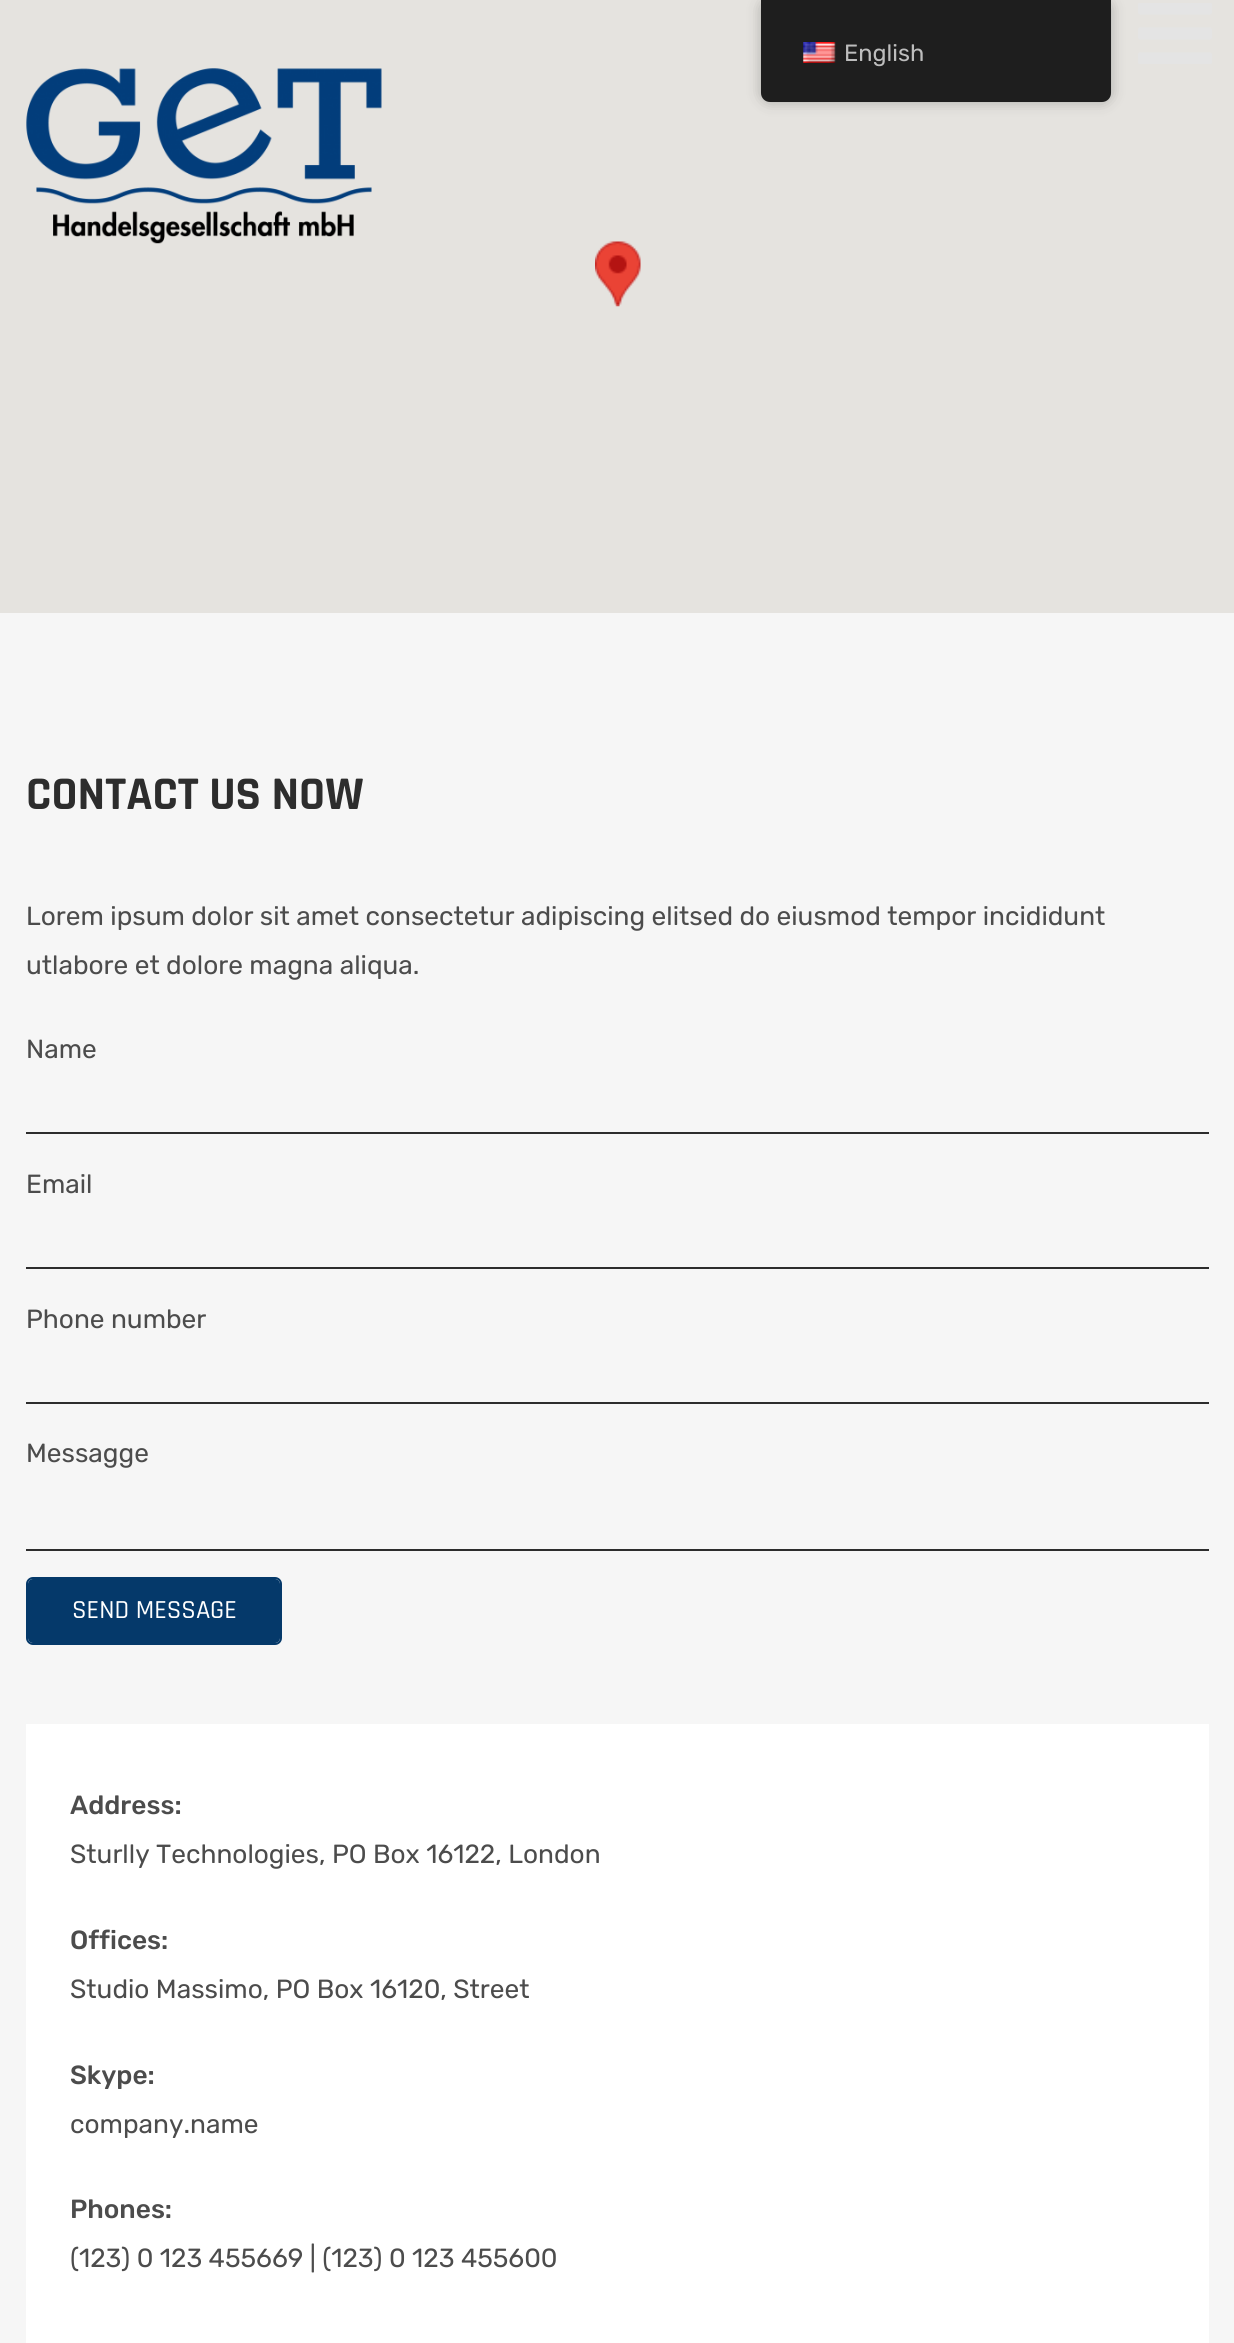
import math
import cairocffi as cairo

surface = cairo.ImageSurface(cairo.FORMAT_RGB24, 1234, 2343)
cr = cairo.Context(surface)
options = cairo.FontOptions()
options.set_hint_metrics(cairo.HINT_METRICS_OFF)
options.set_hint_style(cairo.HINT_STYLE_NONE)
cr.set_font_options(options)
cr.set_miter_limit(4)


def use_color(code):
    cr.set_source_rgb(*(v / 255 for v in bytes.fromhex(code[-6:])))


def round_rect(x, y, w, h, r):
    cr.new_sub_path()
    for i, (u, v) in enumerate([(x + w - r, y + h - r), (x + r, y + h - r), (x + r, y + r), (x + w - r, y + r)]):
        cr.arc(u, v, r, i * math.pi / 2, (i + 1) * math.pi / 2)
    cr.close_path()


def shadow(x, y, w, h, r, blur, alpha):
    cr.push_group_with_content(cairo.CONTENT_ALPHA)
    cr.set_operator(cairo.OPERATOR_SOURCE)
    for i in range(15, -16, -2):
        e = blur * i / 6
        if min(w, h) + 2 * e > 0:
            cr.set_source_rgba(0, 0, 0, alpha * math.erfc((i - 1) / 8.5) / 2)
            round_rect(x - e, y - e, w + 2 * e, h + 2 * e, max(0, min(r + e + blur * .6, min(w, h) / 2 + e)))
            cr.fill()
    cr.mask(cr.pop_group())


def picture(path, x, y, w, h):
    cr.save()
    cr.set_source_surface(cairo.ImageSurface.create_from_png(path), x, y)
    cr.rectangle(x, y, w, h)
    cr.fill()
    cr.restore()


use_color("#f6f6f6")
cr.paint()
use_color("#e5e3df")
cr.rectangle(0, 0, 1234, 613)
cr.fill()
use_color("#000000")
shadow(761, 0, 350, 102, 9, 7, 0.25)
use_color("#1e1e1e")
cr.new_path()
cr.move_to(761, 0)
cr.line_to(1111, 0)
cr.line_to(1111, 93)
cr.curve_to(1111, 98, 1107, 102, 1102, 102)
cr.line_to(770, 102)
cr.curve_to(765, 102, 761, 98, 761, 93)
cr.close_path()
cr.fill()
picture("img1.png", 803, 42, 33, 21)
cr.select_font_face("Rubik")
cr.set_font_size(23.5)
use_color("#bdbdbd")
cr.move_to(844, 61)
cr.show_text("English")
picture("img2.png", 595, 241, 46, 66)
picture("img3.png", 1138, 3, 74, 61)
picture("img4.png", 26, 68, 356, 176)
cr.select_font_face("Rajdhani", cairo.FONT_SLANT_NORMAL, cairo.FONT_WEIGHT_BOLD)
cr.set_font_size(47.25)
use_color("#2d2d2d")
cr.move_to(26, 809)
cr.show_text("CONTACT US NOW")
cr.select_font_face("Rubik")
cr.set_font_size(26.25)
use_color("#4c4c4c")
cr.move_to(26, 925)
cr.show_text("Lorem ipsum dolor sit amet consectetur adipiscing elitsed do eiusmod tempor incididunt")
cr.move_to(26, 974)
cr.show_text("utlabore et dolore magna aliqua.")
cr.move_to(26, 1058)
cr.show_text("Name")
use_color("#2d2d2d")
cr.rectangle(26, 1132, 1183, 2)
cr.fill()
use_color("#4c4c4c")
cr.move_to(26, 1193)
cr.show_text("Email")
use_color("#2d2d2d")
cr.rectangle(26, 1267, 1183, 2)
cr.fill()
use_color("#4c4c4c")
cr.move_to(26, 1328)
cr.show_text("Phone number")
use_color("#2d2d2d")
cr.rectangle(26, 1402, 1183, 2)
cr.fill()
use_color("#4c4c4c")
cr.move_to(26, 1462)
cr.show_text("Messagge")
use_color("#2d2d2d")
cr.rectangle(26, 1549, 1183, 2)
cr.fill()
round_rect(27, 1578, 254, 66, 6)
use_color("#05396a")
cr.stroke()
round_rect(28, 1579, 252, 64, 5)
cr.fill()
cr.select_font_face("Rajdhani Medium")
use_color("#ffffff")
cr.move_to(72, 1618)
cr.show_text("SEND MESSAGE")
cr.rectangle(26, 1724, 1183, 619)
cr.fill()
cr.select_font_face("Rubik Medium")
use_color("#4c4c4c")
cr.move_to(70, 1814)
cr.show_text("Address:")
cr.select_font_face("Rubik")
cr.move_to(70, 1863)
cr.show_text("Sturlly Technologies, PO Box 16122, London")
cr.select_font_face("Rubik Medium")
cr.move_to(70, 1949)
cr.show_text("Offices:")
cr.select_font_face("Rubik")
cr.move_to(70, 1998)
cr.show_text("Studio Massimo, PO Box 16120, Street")
cr.select_font_face("Rubik Medium")
cr.move_to(70, 2084)
cr.show_text("Skype:")
cr.select_font_face("Rubik")
cr.move_to(70, 2133)
cr.show_text("company.name")
cr.select_font_face("Rubik Medium")
cr.move_to(70, 2218)
cr.show_text("Phones:")
cr.select_font_face("Rubik")
cr.move_to(70, 2267)
cr.show_text("(123) 0 123 455669 | (123) 0 123 455600")
surface.write_to_png("result.png")
